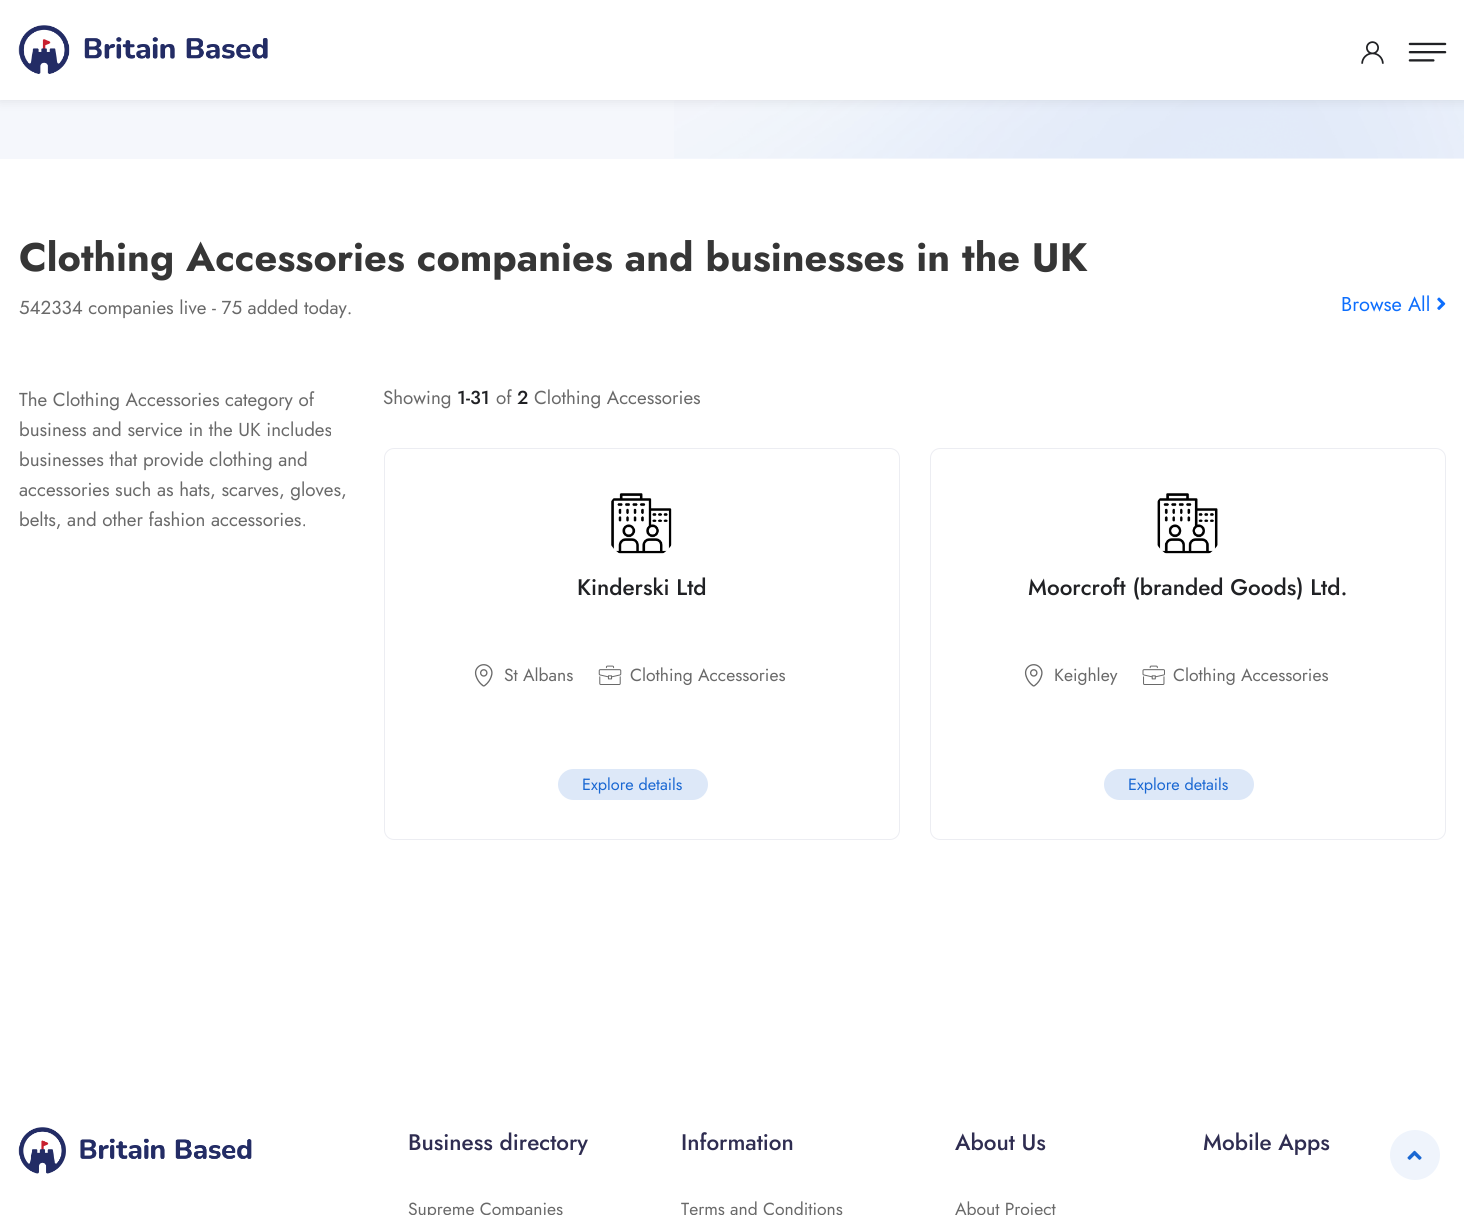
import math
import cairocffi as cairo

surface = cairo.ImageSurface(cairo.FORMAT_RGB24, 1464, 1215)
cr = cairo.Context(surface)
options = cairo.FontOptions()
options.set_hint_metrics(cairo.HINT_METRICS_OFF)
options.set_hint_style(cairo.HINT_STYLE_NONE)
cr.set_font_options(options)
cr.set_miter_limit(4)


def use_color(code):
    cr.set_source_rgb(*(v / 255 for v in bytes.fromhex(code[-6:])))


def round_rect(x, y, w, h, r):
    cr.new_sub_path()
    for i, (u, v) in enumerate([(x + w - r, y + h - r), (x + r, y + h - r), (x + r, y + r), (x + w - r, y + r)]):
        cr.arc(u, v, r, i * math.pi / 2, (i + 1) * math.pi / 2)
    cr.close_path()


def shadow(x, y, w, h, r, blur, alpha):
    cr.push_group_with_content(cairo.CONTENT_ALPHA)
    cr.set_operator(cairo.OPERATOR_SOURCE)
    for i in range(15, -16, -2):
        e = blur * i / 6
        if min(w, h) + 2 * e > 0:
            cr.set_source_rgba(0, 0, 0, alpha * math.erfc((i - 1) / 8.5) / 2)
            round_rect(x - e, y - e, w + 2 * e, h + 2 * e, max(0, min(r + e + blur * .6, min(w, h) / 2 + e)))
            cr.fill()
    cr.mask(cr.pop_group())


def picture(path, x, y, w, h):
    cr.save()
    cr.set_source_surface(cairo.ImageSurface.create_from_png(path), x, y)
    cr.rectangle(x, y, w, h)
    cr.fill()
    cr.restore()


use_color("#ffffff")
cr.paint()
use_color("#f5f7fc")
cr.rectangle(0, 100, 1464, 59)
cr.fill()
picture("img4.png", 674, 100, 790, 59)
use_color("#000000")
shadow(0, 0, 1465, 100, 0, 6, 0.1)
use_color("#ffffff")
cr.rectangle(0, 0, 1464, 100)
cr.fill()
picture("img1.png", 18, 25, 250, 49)
picture("img2.png", 1361, 41, 23, 23)
picture("img3.png", 1408, 42, 39, 20)
cr.select_font_face("Jost", cairo.FONT_SLANT_NORMAL, cairo.FONT_WEIGHT_BOLD)
cr.set_font_size(39.7)
use_color("#363636")
cr.move_to(19, 271)
cr.show_text("Clothing Accessories companies and businesses in the UK")
cr.select_font_face("Jost")
cr.set_font_size(18.75)
use_color("#696969")
cr.move_to(19, 314)
cr.show_text("542334 companies live - 75 added today.")
cr.set_font_size(20)
use_color("#0d6efd")
cr.move_to(1341, 311)
cr.show_text("Browse All")
picture("img5.png", 1437, 297, 9, 13)
cr.set_font_size(18.75)
use_color("#696969")
cr.move_to(19, 406)
cr.show_text("The Clothing Accessories category of")
cr.move_to(19, 436)
cr.show_text("business and service in the UK includes")
cr.move_to(19, 466)
cr.show_text("businesses that provide clothing and")
cr.move_to(19, 496)
cr.show_text("accessories such as hats, scarves, gloves,")
cr.move_to(19, 526)
cr.show_text("belts, and other fashion accessories.")
cr.move_to(383, 404)
cr.show_text("Showing")
cr.select_font_face("Jost Medium")
use_color("#202124")
cr.move_to(457, 404)
cr.show_text("1-31")
cr.select_font_face("Jost")
use_color("#696969")
cr.move_to(496, 404)
cr.show_text("of")
cr.select_font_face("Jost Medium")
use_color("#202124")
cr.move_to(517, 404)
cr.show_text("2")
cr.select_font_face("Jost")
use_color("#696969")
cr.move_to(534, 404)
cr.show_text("Clothing Accessories")
round_rect(384.5, 448.5, 515, 391, 9.5)
use_color("#ecedf2")
cr.set_line_width(1)
cr.stroke()
picture("img6.png", 611, 493, 61, 61)
cr.select_font_face("Jost Medium")
cr.set_font_size(22.5)
use_color("#202124")
cr.move_to(577, 595)
cr.show_text("Kinderski Ltd")
picture("img7.png", 474, 664, 19, 23)
cr.select_font_face("Jost")
cr.set_font_size(17.5)
use_color("#696969")
cr.move_to(504, 681)
cr.show_text("St Albans")
picture("img8.png", 598, 665, 24, 20)
cr.move_to(630, 681)
cr.show_text("Clothing Accessories")
use_color("#dde8f8")
round_rect(558, 769, 150, 31, 15.5)
cr.fill()
cr.set_font_size(16.25)
use_color("#1967d2")
cr.move_to(582, 790)
cr.show_text("Explore details")
round_rect(930.5, 448.5, 515, 391, 9.5)
use_color("#ecedf2")
cr.stroke()
picture("img9.png", 1157, 493, 61, 61)
cr.select_font_face("Jost Medium")
cr.set_font_size(22.5)
use_color("#202124")
cr.move_to(1028, 595)
cr.show_text("Moorcroft (branded Goods) Ltd.")
picture("img7.png", 1024, 664, 19, 23)
cr.select_font_face("Jost")
cr.set_font_size(17.5)
use_color("#696969")
cr.move_to(1054, 681)
cr.show_text("Keighley")
picture("img10.png", 1142, 665, 23, 20)
cr.move_to(1173, 681)
cr.show_text("Clothing Accessories")
use_color("#dde8f8")
round_rect(1104, 769, 150, 31, 15.5)
cr.fill()
cr.set_font_size(16.25)
use_color("#1967d2")
cr.move_to(1128, 790)
cr.show_text("Explore details")
picture("img11.png", 18, 1127, 234, 47)
cr.select_font_face("Jost Medium")
cr.set_font_size(22.5)
use_color("#2f2d51")
cr.move_to(408, 1150)
cr.show_text("Business directory")
cr.select_font_face("Jost")
cr.set_font_size(17.5)
use_color("#696969")
cr.move_to(408, 1215)
cr.show_text("Supreme Companies")
cr.select_font_face("Jost Medium")
cr.set_font_size(22.5)
use_color("#2f2d51")
cr.move_to(681, 1150)
cr.show_text("Information")
cr.select_font_face("Jost")
cr.set_font_size(17.5)
use_color("#696969")
cr.move_to(681, 1215)
cr.show_text("Terms and Conditions")
cr.select_font_face("Jost Medium")
cr.set_font_size(22.5)
use_color("#2f2d51")
cr.move_to(955, 1150)
cr.show_text("About Us")
cr.select_font_face("Jost")
cr.set_font_size(17.5)
use_color("#696969")
cr.move_to(955, 1215)
cr.show_text("About Project")
cr.select_font_face("Jost Medium")
cr.set_font_size(22.5)
use_color("#2f2d51")
cr.move_to(1203, 1150)
cr.show_text("Mobile Apps")
use_color("#eff4fc")
cr.new_path()
cr.arc(1415, 1155, 25, 0, 2 * math.pi)
cr.fill()
picture("img12.png", 1407, 1150, 15, 10)
surface.write_to_png("result.png")
